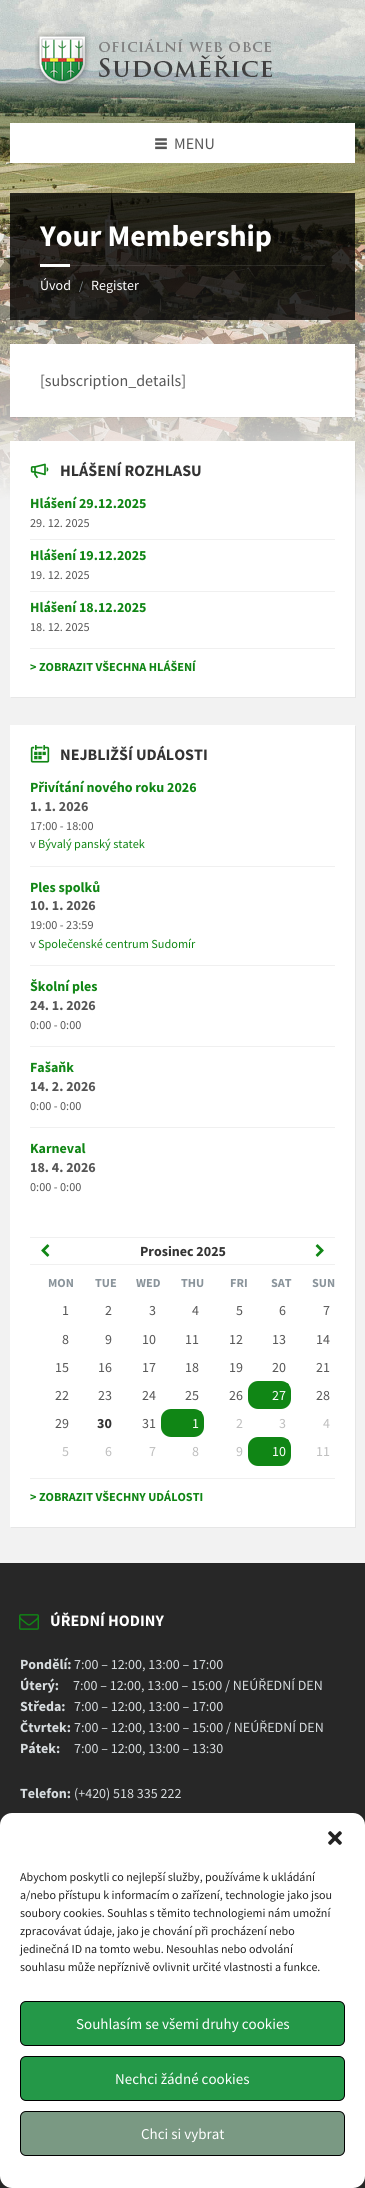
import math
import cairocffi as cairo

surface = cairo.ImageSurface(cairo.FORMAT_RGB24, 365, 2188)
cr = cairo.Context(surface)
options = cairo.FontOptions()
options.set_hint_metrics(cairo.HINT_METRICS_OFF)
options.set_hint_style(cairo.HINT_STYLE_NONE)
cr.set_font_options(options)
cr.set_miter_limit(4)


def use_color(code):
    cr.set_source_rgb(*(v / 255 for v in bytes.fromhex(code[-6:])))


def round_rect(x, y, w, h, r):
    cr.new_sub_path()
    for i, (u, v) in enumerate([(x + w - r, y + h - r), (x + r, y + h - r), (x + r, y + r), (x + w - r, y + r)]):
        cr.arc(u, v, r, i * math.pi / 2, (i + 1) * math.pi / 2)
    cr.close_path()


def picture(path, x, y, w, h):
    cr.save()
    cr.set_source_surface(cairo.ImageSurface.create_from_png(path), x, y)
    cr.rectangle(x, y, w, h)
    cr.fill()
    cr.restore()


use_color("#f2f2f2")
cr.paint()
picture("img1.png", 0, 0, 365, 500)
picture("img2.png", 35, 32, 238, 56)
use_color("#ffffff")
cr.rectangle(10, 123, 345, 40)
cr.fill()
picture("img3.png", 155, 138, 12, 12)
cr.select_font_face("Source Sans Pro")
cr.set_font_size(16)
use_color("#565656")
cr.move_to(174, 149)
cr.show_text("MENU")
cr.set_source_rgba(0, 0, 0, 0.8)
cr.rectangle(10, 193, 345, 127)
cr.fill()
cr.select_font_face("Source Sans Pro", cairo.FONT_SLANT_NORMAL, cairo.FONT_WEIGHT_BOLD)
cr.set_font_size(30)
use_color("#ffffff")
cr.move_to(40, 246)
cr.show_text("Your Membership")
cr.set_source_rgba(1, 1, 1, 0.1)
cr.rectangle(70, 265, 255, 1)
cr.fill()
use_color("#ffffff")
cr.rectangle(40, 264, 30, 3)
cr.fill()
cr.select_font_face("Source Sans Pro")
cr.set_font_size(14)
cr.move_to(40, 290)
cr.show_text("Úvod")
cr.set_font_size(12)
use_color("#8a949b")
cr.move_to(79, 290)
cr.show_text("/")
cr.set_font_size(14)
use_color("#ffffff")
cr.move_to(91, 290)
cr.show_text("Register")
cr.set_source_rgba(0, 0, 0, 0.05)
cr.new_path()
cr.move_to(11, 417)
cr.line_to(11, 418)
cr.line_to(356, 418)
cr.line_to(356, 345)
cr.line_to(355, 345)
cr.line_to(355, 417)
cr.close_path()
cr.fill()
use_color("#ffffff")
cr.rectangle(10, 344, 345, 73)
cr.fill()
cr.set_font_size(16)
use_color("#565656")
cr.move_to(40, 386)
cr.show_text("[subscription_details]")
cr.set_source_rgba(0, 0, 0, 0.05)
cr.new_path()
cr.move_to(11, 697)
cr.line_to(11, 698)
cr.line_to(356, 698)
cr.line_to(356, 442)
cr.line_to(355, 442)
cr.line_to(355, 697)
cr.close_path()
cr.fill()
use_color("#ffffff")
cr.rectangle(10, 441, 345, 256)
cr.fill()
picture("img4.png", 30, 463, 19, 16)
cr.select_font_face("Source Sans Pro", cairo.FONT_SLANT_NORMAL, cairo.FONT_WEIGHT_BOLD)
use_color("#333333")
cr.move_to(60, 476)
cr.show_text("HLÁŠENÍ ROZHLASU")
cr.set_font_size(14)
use_color("#108615")
cr.move_to(30, 508)
cr.show_text("Hlášení 29.12.2025")
cr.select_font_face("Source Sans Pro")
cr.set_font_size(12.25)
use_color("#565656")
cr.move_to(30, 527)
cr.show_text("29. 12. 2025")
use_color("#f0f0f0")
cr.rectangle(30, 539, 305, 1)
cr.fill()
cr.select_font_face("Source Sans Pro", cairo.FONT_SLANT_NORMAL, cairo.FONT_WEIGHT_BOLD)
cr.set_font_size(14)
use_color("#108615")
cr.move_to(30, 560)
cr.show_text("Hlášení 19.12.2025")
cr.select_font_face("Source Sans Pro")
cr.set_font_size(12.25)
use_color("#565656")
cr.move_to(30, 579)
cr.show_text("19. 12. 2025")
use_color("#f0f0f0")
cr.rectangle(30, 591, 305, 1)
cr.fill()
cr.select_font_face("Source Sans Pro", cairo.FONT_SLANT_NORMAL, cairo.FONT_WEIGHT_BOLD)
cr.set_font_size(14)
use_color("#108615")
cr.move_to(30, 612)
cr.show_text("Hlášení 18.12.2025")
cr.select_font_face("Source Sans Pro")
cr.set_font_size(12.25)
use_color("#565656")
cr.move_to(30, 631)
cr.show_text("18. 12. 2025")
use_color("#f0f0f0")
cr.rectangle(30, 648, 305, 1)
cr.fill()
cr.select_font_face("Source Sans Pro", cairo.FONT_SLANT_NORMAL, cairo.FONT_WEIGHT_BOLD)
use_color("#108615")
cr.move_to(30, 671)
cr.show_text("> ZOBRAZIT VŠECHNA HLÁŠENÍ")
use_color("#e6e6e6")
cr.new_path()
cr.move_to(11, 1217)
cr.line_to(11, 1218)
cr.line_to(356, 1218)
cr.line_to(356, 726)
cr.line_to(355, 726)
cr.line_to(355, 1217)
cr.close_path()
cr.fill()
use_color("#ffffff")
cr.rectangle(10, 725, 345, 492)
cr.fill()
picture("img5.png", 30, 745, 20, 18)
cr.set_font_size(16)
use_color("#333333")
cr.move_to(60, 760)
cr.show_text("NEJBLIŽŠÍ UDÁLOSTI")
cr.set_font_size(14)
use_color("#108615")
cr.move_to(30, 792)
cr.show_text("Přivítání nového roku 2026")
use_color("#565656")
cr.move_to(30, 811)
cr.show_text("1. 1. 2026")
cr.select_font_face("Source Sans Pro")
cr.set_font_size(12.25)
cr.move_to(30, 830)
cr.show_text("17:00 - 18:00")
cr.move_to(30, 848)
cr.show_text("v")
use_color("#108615")
cr.move_to(38, 848)
cr.show_text("Bývalý panský statek")
use_color("#f0f0f0")
cr.rectangle(30, 866, 305, 1)
cr.fill()
cr.select_font_face("Source Sans Pro", cairo.FONT_SLANT_NORMAL, cairo.FONT_WEIGHT_BOLD)
cr.set_font_size(14)
use_color("#108615")
cr.move_to(30, 892)
cr.show_text("Ples spolků")
use_color("#565656")
cr.move_to(30, 910)
cr.show_text("10. 1. 2026")
cr.select_font_face("Source Sans Pro")
cr.set_font_size(12.25)
cr.move_to(30, 929)
cr.show_text("19:00 - 23:59")
cr.move_to(30, 948)
cr.show_text("v")
use_color("#108615")
cr.move_to(38, 948)
cr.show_text("Společenské centrum Sudomír")
use_color("#f0f0f0")
cr.rectangle(30, 965, 305, 1)
cr.fill()
cr.select_font_face("Source Sans Pro", cairo.FONT_SLANT_NORMAL, cairo.FONT_WEIGHT_BOLD)
cr.set_font_size(14)
use_color("#108615")
cr.move_to(30, 991)
cr.show_text("Školní ples")
use_color("#565656")
cr.move_to(30, 1010)
cr.show_text("24. 1. 2026")
cr.select_font_face("Source Sans Pro")
cr.set_font_size(12.25)
cr.move_to(30, 1029)
cr.show_text("0:00 - 0:00")
use_color("#f0f0f0")
cr.rectangle(30, 1046, 305, 1)
cr.fill()
cr.select_font_face("Source Sans Pro", cairo.FONT_SLANT_NORMAL, cairo.FONT_WEIGHT_BOLD)
cr.set_font_size(14)
use_color("#108615")
cr.move_to(30, 1072)
cr.show_text("Fašaňk")
use_color("#565656")
cr.move_to(30, 1091)
cr.show_text("14. 2. 2026")
cr.select_font_face("Source Sans Pro")
cr.set_font_size(12.25)
cr.move_to(30, 1110)
cr.show_text("0:00 - 0:00")
use_color("#f0f0f0")
cr.rectangle(30, 1127, 305, 1)
cr.fill()
cr.select_font_face("Source Sans Pro", cairo.FONT_SLANT_NORMAL, cairo.FONT_WEIGHT_BOLD)
cr.set_font_size(14)
use_color("#108615")
cr.move_to(30, 1153)
cr.show_text("Karneval")
use_color("#565656")
cr.move_to(30, 1172)
cr.show_text("18. 4. 2026")
cr.select_font_face("Source Sans Pro")
cr.set_font_size(12.25)
cr.move_to(30, 1191)
cr.show_text("0:00 - 0:00")
use_color("#e6e6e6")
cr.new_path()
cr.move_to(11, 1527)
cr.line_to(11, 1528)
cr.line_to(356, 1528)
cr.line_to(356, 1218)
cr.line_to(355, 1218)
cr.line_to(355, 1527)
cr.close_path()
cr.fill()
use_color("#ffffff")
cr.rectangle(10, 1217, 345, 310)
cr.fill()
use_color("#f0f0f0")
cr.rectangle(30, 1237, 305, 1)
cr.fill()
cr.rectangle(30, 1264, 305, 1)
cr.fill()
picture("img6.png", 41, 1244, 9, 13)
cr.select_font_face("Source Sans Pro", cairo.FONT_SLANT_NORMAL, cairo.FONT_WEIGHT_BOLD)
cr.set_font_size(14)
use_color("#333333")
cr.move_to(140, 1256)
cr.show_text("Prosinec 2025")
picture("img7.png", 315, 1244, 9, 13)
cr.set_font_size(12.25)
use_color("#8a949b")
cr.move_to(48, 1287)
cr.show_text("MON")
cr.move_to(95, 1287)
cr.show_text("TUE")
cr.move_to(136, 1287)
cr.show_text("WED")
cr.move_to(181, 1287)
cr.show_text("THU")
cr.move_to(230, 1287)
cr.show_text("FRI")
cr.move_to(271, 1287)
cr.show_text("SAT")
cr.move_to(312, 1287)
cr.show_text("SUN")
cr.select_font_face("Source Sans Pro")
cr.set_font_size(14)
use_color("#565656")
cr.move_to(62, 1315)
cr.show_text("1")
cr.move_to(105, 1315)
cr.show_text("2")
cr.move_to(149, 1315)
cr.show_text("3")
cr.move_to(192, 1315)
cr.show_text("4")
cr.move_to(236, 1315)
cr.show_text("5")
cr.move_to(279, 1315)
cr.show_text("6")
cr.move_to(323, 1315)
cr.show_text("7")
cr.move_to(62, 1344)
cr.show_text("8")
cr.move_to(105, 1344)
cr.show_text("9")
cr.move_to(142, 1344)
cr.show_text("10")
cr.move_to(185, 1344)
cr.show_text("11")
cr.move_to(229, 1344)
cr.show_text("12")
cr.move_to(272, 1344)
cr.show_text("13")
cr.move_to(316, 1344)
cr.show_text("14")
cr.move_to(55, 1372)
cr.show_text("15")
cr.move_to(98, 1372)
cr.show_text("16")
cr.move_to(142, 1372)
cr.show_text("17")
cr.move_to(185, 1372)
cr.show_text("18")
cr.move_to(229, 1372)
cr.show_text("19")
cr.move_to(272, 1372)
cr.show_text("20")
cr.move_to(316, 1372)
cr.show_text("21")
cr.move_to(55, 1400)
cr.show_text("22")
cr.move_to(98, 1400)
cr.show_text("23")
cr.move_to(142, 1400)
cr.show_text("24")
cr.move_to(185, 1400)
cr.show_text("25")
cr.move_to(229, 1400)
cr.show_text("26")
use_color("#108615")
round_rect(248, 1381, 43, 28, 10)
cr.fill()
cr.arc(286.5, 1385.5, 2.5, 0, 2 * math.pi)
cr.fill()
use_color("#ffffff")
cr.move_to(272, 1400)
cr.show_text("27")
use_color("#565656")
cr.move_to(316, 1400)
cr.show_text("28")
cr.move_to(55, 1428)
cr.show_text("29")
cr.select_font_face("Source Sans Pro", cairo.FONT_SLANT_NORMAL, cairo.FONT_WEIGHT_BOLD)
use_color("#333333")
cr.move_to(97, 1428)
cr.show_text("30")
cr.select_font_face("Source Sans Pro")
use_color("#565656")
cr.move_to(142, 1428)
cr.show_text("31")
use_color("#108615")
round_rect(161, 1409, 43, 28, 10)
cr.fill()
cr.arc(199.5, 1413.5, 2.5, 0, 2 * math.pi)
cr.fill()
use_color("#ffffff")
cr.move_to(192, 1428)
cr.show_text("1")
use_color("#bebebe")
cr.move_to(236, 1428)
cr.show_text("2")
cr.move_to(279, 1428)
cr.show_text("3")
cr.move_to(323, 1428)
cr.show_text("4")
cr.move_to(62, 1456)
cr.show_text("5")
cr.move_to(105, 1456)
cr.show_text("6")
cr.move_to(149, 1456)
cr.show_text("7")
cr.move_to(192, 1456)
cr.show_text("8")
cr.move_to(236, 1456)
cr.show_text("9")
use_color("#108615")
round_rect(248, 1437, 43, 29, 10)
cr.fill()
cr.arc(286.5, 1441.5, 2.5, 0, 2 * math.pi)
cr.fill()
use_color("#ffffff")
cr.move_to(272, 1456)
cr.show_text("10")
use_color("#bebebe")
cr.move_to(316, 1456)
cr.show_text("11")
use_color("#f0f0f0")
cr.rectangle(30, 1478, 305, 1)
cr.fill()
cr.select_font_face("Source Sans Pro", cairo.FONT_SLANT_NORMAL, cairo.FONT_WEIGHT_BOLD)
cr.set_font_size(12.25)
use_color("#108615")
cr.move_to(30, 1501)
cr.show_text("> ZOBRAZIT VŠECHNY UDÁLOSTI")
use_color("#272727")
cr.rectangle(0, 1563, 365, 625)
cr.fill()
picture("img8.png", 19, 1614, 20, 16)
cr.set_font_size(16)
use_color("#ffffff")
cr.move_to(50, 1626)
cr.show_text("ÚŘEDNÍ HODINY")
cr.set_font_size(14)
use_color("#d7dcdf")
cr.move_to(20, 1669)
cr.show_text("Pondělí:")
cr.select_font_face("Source Sans Pro")
cr.move_to(74, 1669)
cr.show_text("7:00 – 12:00, 13:00 – 17:00")
cr.select_font_face("Source Sans Pro", cairo.FONT_SLANT_NORMAL, cairo.FONT_WEIGHT_BOLD)
cr.move_to(20, 1690)
cr.show_text("Úterý:")
cr.select_font_face("Source Sans Pro")
cr.move_to(73, 1690)
cr.show_text("7:00 – 12:00, 13:00 – 15:00 / NEÚŘEDNÍ DEN")
cr.select_font_face("Source Sans Pro", cairo.FONT_SLANT_NORMAL, cairo.FONT_WEIGHT_BOLD)
cr.move_to(20, 1711)
cr.show_text("Středa:")
cr.select_font_face("Source Sans Pro")
cr.move_to(74, 1711)
cr.show_text("7:00 – 12:00, 13:00 – 17:00")
cr.select_font_face("Source Sans Pro", cairo.FONT_SLANT_NORMAL, cairo.FONT_WEIGHT_BOLD)
cr.move_to(20, 1732)
cr.show_text("Čtvrtek:")
cr.select_font_face("Source Sans Pro")
cr.move_to(74, 1732)
cr.show_text("7:00 – 12:00, 13:00 – 15:00 / NEÚŘEDNÍ DEN")
cr.select_font_face("Source Sans Pro", cairo.FONT_SLANT_NORMAL, cairo.FONT_WEIGHT_BOLD)
cr.move_to(20, 1753)
cr.show_text("Pátek:")
cr.select_font_face("Source Sans Pro")
cr.move_to(74, 1753)
cr.show_text("7:00 – 12:00, 13:00 – 13:30")
cr.select_font_face("Source Sans Pro", cairo.FONT_SLANT_NORMAL, cairo.FONT_WEIGHT_BOLD)
cr.move_to(20, 1798)
cr.show_text("Telefon:")
cr.select_font_face("Source Sans Pro")
cr.move_to(74, 1798)
cr.show_text("(+420) 518 335 222")
use_color("#ffffff")
round_rect(0, 1813, 365, 375, 12)
cr.fill()
picture("img9.png", 328, 1831, 14, 14)
cr.set_font_size(12)
use_color("#222222")
cr.move_to(20, 1881)
cr.show_text("Abychom poskytli co nejlepší služby, používáme k ukládání")
cr.move_to(20, 1899)
cr.show_text("a/nebo přístupu k informacím o zařízení, technologie jako jsou")
cr.move_to(20, 1917)
cr.show_text("soubory cookies. Souhlas s těmito technologiemi nám umožní")
cr.move_to(20, 1935)
cr.show_text("zpracovávat údaje, jako je chování při procházení nebo")
cr.move_to(20, 1953)
cr.show_text("jedinečná ID na tomto webu. Nesouhlas nebo odvolání")
cr.move_to(20, 1971)
cr.show_text("souhlasu může nepříznivě ovlivnit určité vlastnosti a funkce.")
use_color("#249848")
round_rect(20.5, 2001.5, 324, 44, 5.5)
cr.fill_preserve()
use_color("#000000")
cr.set_line_width(1)
cr.stroke()
cr.set_font_size(15)
use_color("#ffffff")
cr.move_to(76, 2029)
cr.show_text("Souhlasím se všemi druhy cookies")
use_color("#249848")
round_rect(20.5, 2056.5, 324, 44, 5.5)
cr.fill_preserve()
use_color("#000000")
cr.stroke()
use_color("#ffffff")
cr.move_to(115, 2084)
cr.show_text("Nechci žádné cookies")
use_color("#7a9983")
round_rect(20.5, 2111.5, 324, 44, 5.5)
cr.fill_preserve()
use_color("#000000")
cr.stroke()
use_color("#ffffff")
cr.move_to(141, 2139)
cr.show_text("Chci si vybrat")
surface.write_to_png("result.png")
